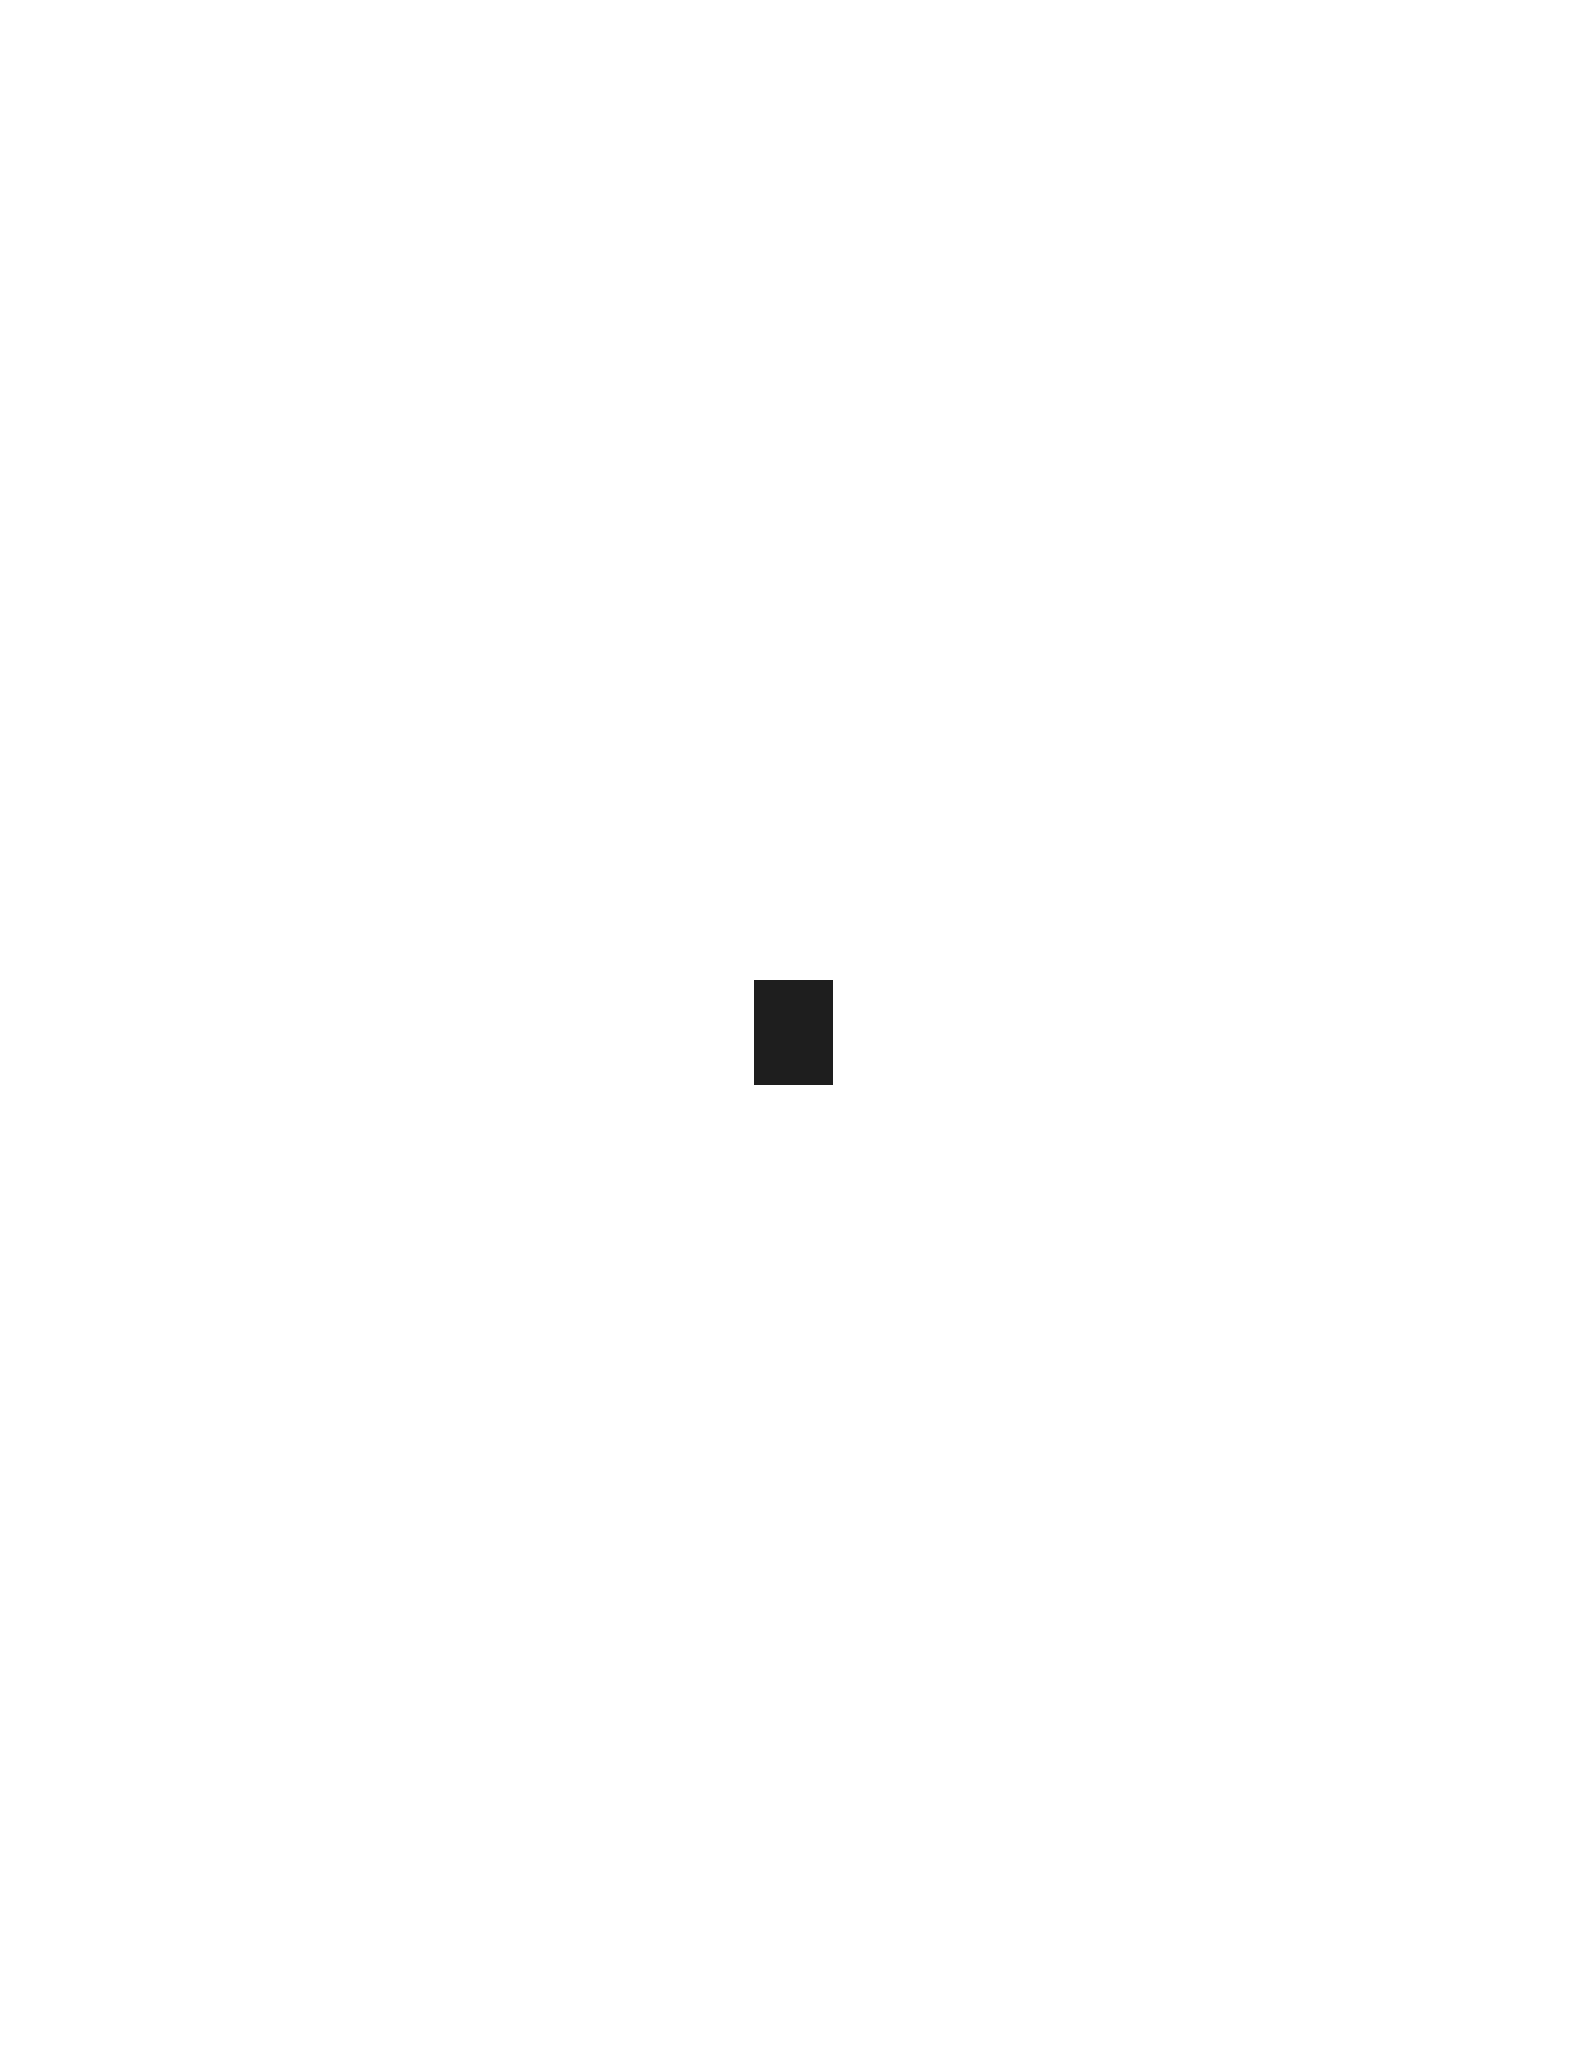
import math
import cairocffi as cairo

surface = cairo.ImageSurface(cairo.FORMAT_RGB24, 1585, 2062)
cr = cairo.Context(surface)
options = cairo.FontOptions()
options.set_hint_metrics(cairo.HINT_METRICS_OFF)
options.set_hint_style(cairo.HINT_STYLE_NONE)
cr.set_font_options(options)
cr.set_miter_limit(4)


def use_color(code):
    cr.set_source_rgb(*(v / 255 for v in bytes.fromhex(code[-6:])))


use_color("#ffffff")
cr.paint()
use_color("#1e1e1e")
cr.rectangle(754, 980, 79, 105)
cr.fill()
surface.write_to_png("result.png")
